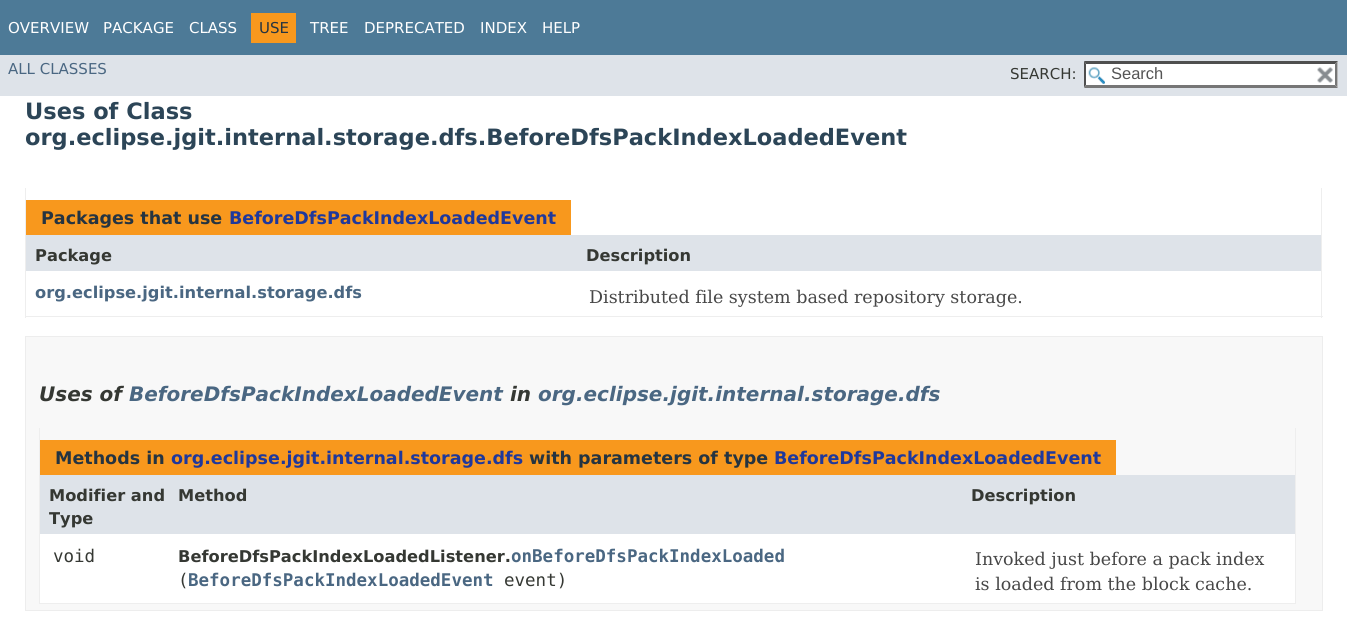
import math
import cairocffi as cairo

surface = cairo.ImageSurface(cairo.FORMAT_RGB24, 1347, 641)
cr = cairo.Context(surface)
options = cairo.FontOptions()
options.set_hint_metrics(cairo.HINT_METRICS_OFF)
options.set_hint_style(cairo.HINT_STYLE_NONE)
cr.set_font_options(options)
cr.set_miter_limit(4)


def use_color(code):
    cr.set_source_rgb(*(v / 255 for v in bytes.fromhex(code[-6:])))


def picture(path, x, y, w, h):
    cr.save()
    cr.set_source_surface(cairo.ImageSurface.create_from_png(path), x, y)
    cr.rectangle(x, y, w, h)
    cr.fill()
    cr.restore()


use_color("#ffffff")
cr.paint()
use_color("#4d7a97")
cr.rectangle(0, 0, 1347, 55)
cr.fill()
cr.select_font_face("DejaVu Sans")
cr.set_font_size(15)
use_color("#ffffff")
cr.move_to(8, 33)
cr.show_text("OVERVIEW")
cr.move_to(103, 33)
cr.show_text("PACKAGE")
cr.move_to(189, 33)
cr.show_text("CLASS")
use_color("#f8981d")
cr.rectangle(251, 13, 45, 30)
cr.fill()
use_color("#253441")
cr.move_to(259, 33)
cr.show_text("USE")
use_color("#ffffff")
cr.move_to(310, 33)
cr.show_text("TREE")
cr.move_to(364, 33)
cr.show_text("DEPRECATED")
cr.move_to(480, 33)
cr.show_text("INDEX")
cr.move_to(542, 33)
cr.show_text("HELP")
use_color("#dee3e9")
cr.rectangle(0, 55, 1347, 41)
cr.fill()
use_color("#4a6782")
cr.move_to(8, 74)
cr.show_text("ALL CLASSES")
use_color("#353833")
cr.move_to(1010, 79)
cr.show_text("SEARCH:")
use_color("#ffffff")
cr.rectangle(1084, 61, 254, 27)
cr.fill()
picture("img1.png", 1088, 67, 17, 17)
use_color("#4f4f4f")
cr.new_path()
cr.move_to(1084, 61)
cr.line_to(1338, 61)
cr.line_to(1335, 64)
cr.line_to(1086, 64)
cr.close_path()
cr.fill()
use_color("#767676")
cr.new_path()
cr.move_to(1337.5, 61)
cr.line_to(1337.5, 87.5)
cr.line_to(1335, 85)
cr.line_to(1335, 64)
cr.close_path()
cr.fill()
cr.new_path()
cr.move_to(1338, 88)
cr.line_to(1084, 88)
cr.line_to(1086, 85)
cr.line_to(1335, 85)
cr.close_path()
cr.fill()
use_color("#4f4f4f")
cr.new_path()
cr.move_to(1084, 87.5)
cr.line_to(1084, 61)
cr.line_to(1086, 64)
cr.line_to(1086, 85)
cr.close_path()
cr.fill()
cr.select_font_face("Liberation Sans")
cr.set_font_size(16.5)
use_color("#545454")
cr.move_to(1111, 79)
cr.show_text("Search")
picture("img2.png", 1317, 67, 16, 16)
cr.select_font_face("DejaVu Sans", cairo.FONT_SLANT_NORMAL, cairo.FONT_WEIGHT_BOLD)
cr.set_font_size(22.5)
use_color("#2c4557")
cr.move_to(25, 119)
cr.show_text("Uses of Class")
cr.move_to(25, 145)
cr.show_text("org.eclipse.jgit.internal.storage.dfs.BeforeDfsPackIndexLoadedEvent")
use_color("#eeeeee")
cr.rectangle(1321, 188, 1, 130)
cr.fill()
cr.rectangle(25, 316, 1298, 1)
cr.fill()
cr.rectangle(25, 188, 1, 130)
cr.fill()
use_color("#f8981d")
cr.rectangle(26, 200, 545, 35)
cr.fill()
cr.set_font_size(17.5)
use_color("#253441")
cr.move_to(41, 224)
cr.show_text("Packages that use")
use_color("#1f389c")
cr.move_to(229, 224)
cr.show_text("BeforeDfsPackIndexLoadedEvent")
use_color("#dee3e9")
cr.rectangle(26, 235, 1295, 36)
cr.fill()
cr.set_font_size(16.25)
use_color("#353833")
cr.move_to(35, 261)
cr.show_text("Package")
cr.move_to(586, 261)
cr.show_text("Description")
use_color("#4a6782")
cr.move_to(35, 298)
cr.show_text("org.eclipse.jgit.internal.storage.dfs")
cr.select_font_face("DejaVu Serif")
cr.set_font_size(17.5)
use_color("#474747")
cr.move_to(589, 303)
cr.show_text("Distributed file system based repository storage.")
use_color("#f8f8f8")
cr.rectangle(25.5, 336.5, 1297, 274)
cr.fill_preserve()
use_color("#ededed")
cr.set_line_width(1)
cr.stroke()
cr.select_font_face("DejaVu Sans", cairo.FONT_SLANT_ITALIC, cairo.FONT_WEIGHT_BOLD)
cr.set_font_size(20)
use_color("#353833")
cr.move_to(39, 401)
cr.show_text("Uses of")
use_color("#4a6782")
cr.move_to(129, 401)
cr.show_text("BeforeDfsPackIndexLoadedEvent")
use_color("#353833")
cr.move_to(510, 401)
cr.show_text("in")
use_color("#4a6782")
cr.move_to(538, 401)
cr.show_text("org.eclipse.jgit.internal.storage.dfs")
use_color("#eeeeee")
cr.rectangle(1295, 428, 1, 176)
cr.fill()
cr.rectangle(39, 603, 1257, 1)
cr.fill()
cr.rectangle(39, 428, 1, 176)
cr.fill()
use_color("#f8981d")
cr.rectangle(40, 440, 1076, 35)
cr.fill()
cr.select_font_face("DejaVu Sans", cairo.FONT_SLANT_NORMAL, cairo.FONT_WEIGHT_BOLD)
cr.set_font_size(17.5)
use_color("#253441")
cr.move_to(55, 464)
cr.show_text("Methods in")
use_color("#1f389c")
cr.move_to(171, 464)
cr.show_text("org.eclipse.jgit.internal.storage.dfs")
use_color("#253441")
cr.move_to(529, 464)
cr.show_text("with parameters of type")
use_color("#1f389c")
cr.move_to(774, 464)
cr.show_text("BeforeDfsPackIndexLoadedEvent")
use_color("#dee3e9")
cr.rectangle(40, 475, 1255, 59)
cr.fill()
cr.set_font_size(16.25)
use_color("#353833")
cr.move_to(49, 501)
cr.show_text("Modifier and")
cr.move_to(49, 524)
cr.show_text("Type")
cr.move_to(178, 501)
cr.show_text("Method")
cr.move_to(971, 501)
cr.show_text("Description")
use_color("#ffffff")
cr.rectangle(40, 534, 1255, 69)
cr.fill()
cr.select_font_face("DejaVu Sans Mono")
cr.set_font_size(17.5)
use_color("#353833")
cr.move_to(53, 562)
cr.show_text("void")
cr.select_font_face("DejaVu Sans", cairo.FONT_SLANT_NORMAL, cairo.FONT_WEIGHT_BOLD)
cr.set_font_size(16.25)
cr.move_to(178, 562)
cr.show_text("BeforeDfsPackIndexLoadedListener.")
cr.select_font_face("DejaVu Sans Mono", cairo.FONT_SLANT_NORMAL, cairo.FONT_WEIGHT_BOLD)
cr.set_font_size(17.5)
use_color("#4a6782")
cr.move_to(511, 562)
cr.show_text("onBeforeDfsPackIndexLoaded")
cr.select_font_face("DejaVu Sans Mono")
use_color("#353833")
cr.move_to(178, 586)
cr.show_text("(")
cr.select_font_face("DejaVu Sans Mono", cairo.FONT_SLANT_NORMAL, cairo.FONT_WEIGHT_BOLD)
use_color("#4a6782")
cr.move_to(188, 586)
cr.show_text("BeforeDfsPackIndexLoadedEvent")
cr.select_font_face("DejaVu Sans Mono")
use_color("#353833")
cr.move_to(504, 586)
cr.show_text("event)")
cr.select_font_face("DejaVu Serif")
use_color("#474747")
cr.move_to(975, 565)
cr.show_text("Invoked just before a pack index")
cr.move_to(975, 590)
cr.show_text("is loaded from the block cache.")
surface.write_to_png("result.png")
